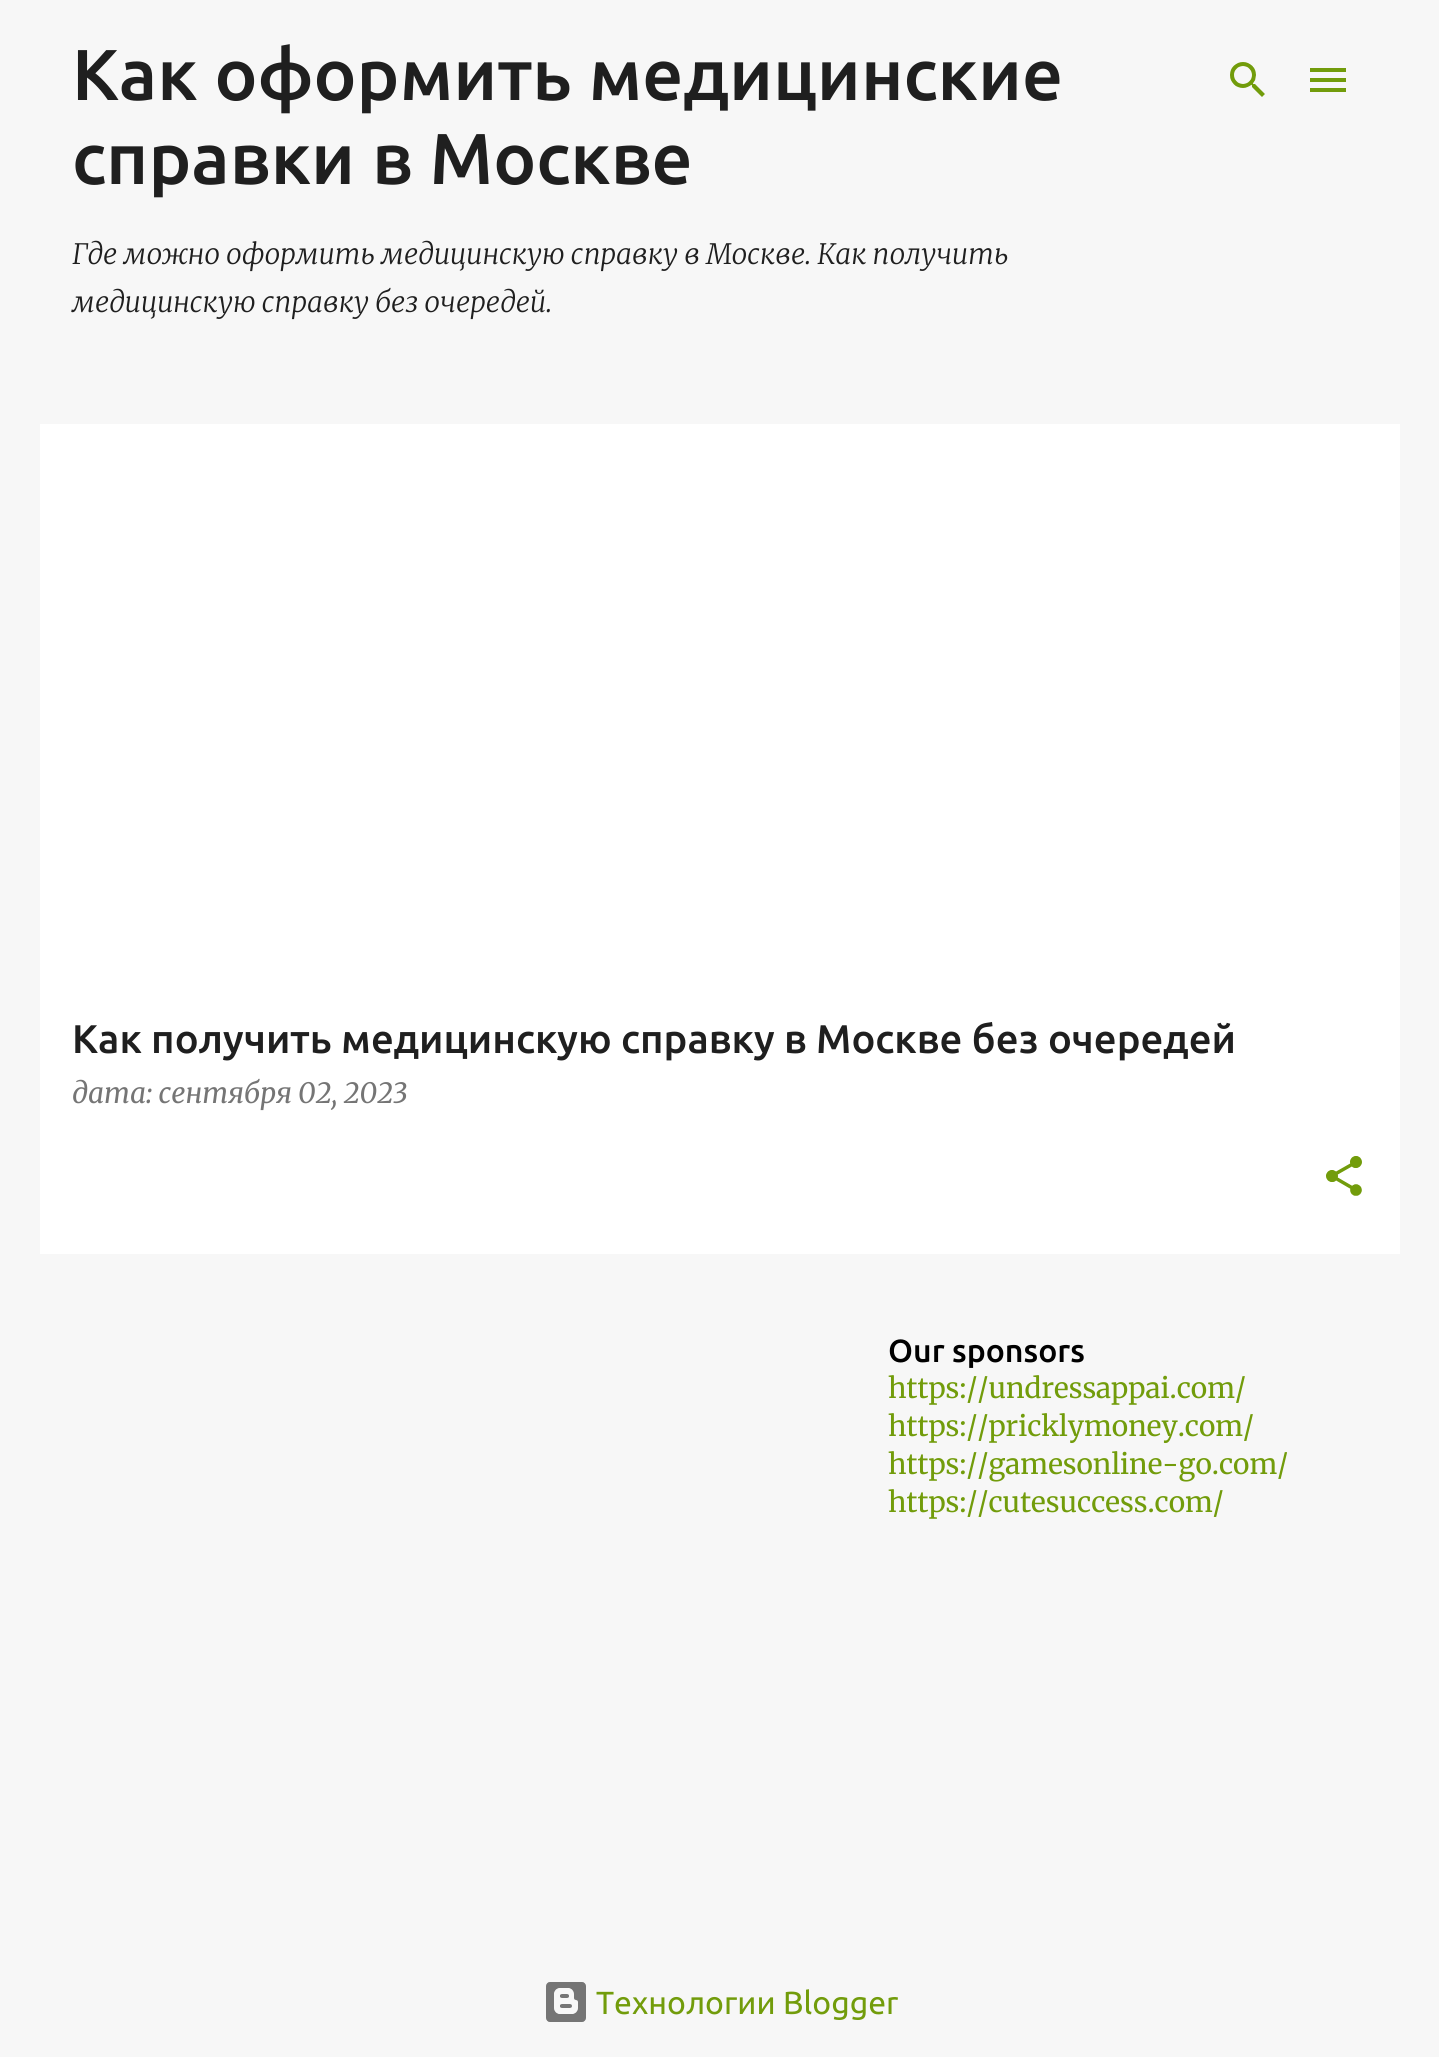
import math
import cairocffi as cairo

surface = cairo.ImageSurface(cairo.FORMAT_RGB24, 1439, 2057)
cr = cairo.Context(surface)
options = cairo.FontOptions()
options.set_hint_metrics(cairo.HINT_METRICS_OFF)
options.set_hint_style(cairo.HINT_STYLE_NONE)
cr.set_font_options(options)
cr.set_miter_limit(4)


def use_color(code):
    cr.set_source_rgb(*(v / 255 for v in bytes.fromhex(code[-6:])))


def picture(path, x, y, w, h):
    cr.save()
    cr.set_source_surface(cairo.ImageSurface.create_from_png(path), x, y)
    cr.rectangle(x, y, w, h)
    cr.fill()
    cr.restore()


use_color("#f7f7f7")
cr.paint()
cr.select_font_face("Ubuntu Medium")
cr.set_font_size(72)
use_color("#1f1f1f")
cr.move_to(72, 100)
cr.show_text("Как оформить медицинские")
cr.move_to(72, 184)
cr.show_text("справки в Москве")
cr.select_font_face("Merriweather Light", cairo.FONT_SLANT_ITALIC)
cr.set_font_size(28)
cr.move_to(72, 264)
cr.show_text("Где можно оформить медицинскую справку в Москве. Как получить")
cr.move_to(72, 312)
cr.show_text("медицинскую справку без очередей.")
picture("img1.png", 1230, 62, 35, 35)
picture("img2.png", 1310, 68, 36, 24)
use_color("#ffffff")
cr.rectangle(40, 424, 1360, 830)
cr.fill()
cr.select_font_face("Ubuntu Medium")
cr.set_font_size(40)
use_color("#1f1f1f")
cr.move_to(72, 1053)
cr.show_text("Как получить медицинскую справку в Москве без очередей")
cr.select_font_face("Merriweather", cairo.FONT_SLANT_ITALIC)
cr.set_font_size(28)
use_color("#757575")
cr.move_to(72, 1103)
cr.show_text("дата: сентября 02, 2023")
picture("img3.png", 1326, 1156, 36, 40)
cr.select_font_face("Ubuntu Medium")
cr.set_font_size(32)
use_color("#000000")
cr.move_to(888, 1362)
cr.show_text("Our sponsors")
cr.select_font_face("Merriweather Light")
cr.set_font_size(28)
use_color("#729c0b")
cr.move_to(888, 1398)
cr.show_text("https://undressappai.com/")
cr.move_to(888, 1436)
cr.show_text("https://pricklymoney.com/")
cr.move_to(888, 1474)
cr.show_text("https://gamesonline-go.com/")
cr.move_to(888, 1512)
cr.show_text("https://cutesuccess.com/")
picture("img4.png", 546, 1982, 40, 40)
cr.select_font_face("Ubuntu")
cr.set_font_size(32)
cr.move_to(596, 2014)
cr.show_text("Технологии Blogger")
surface.write_to_png("result.png")
